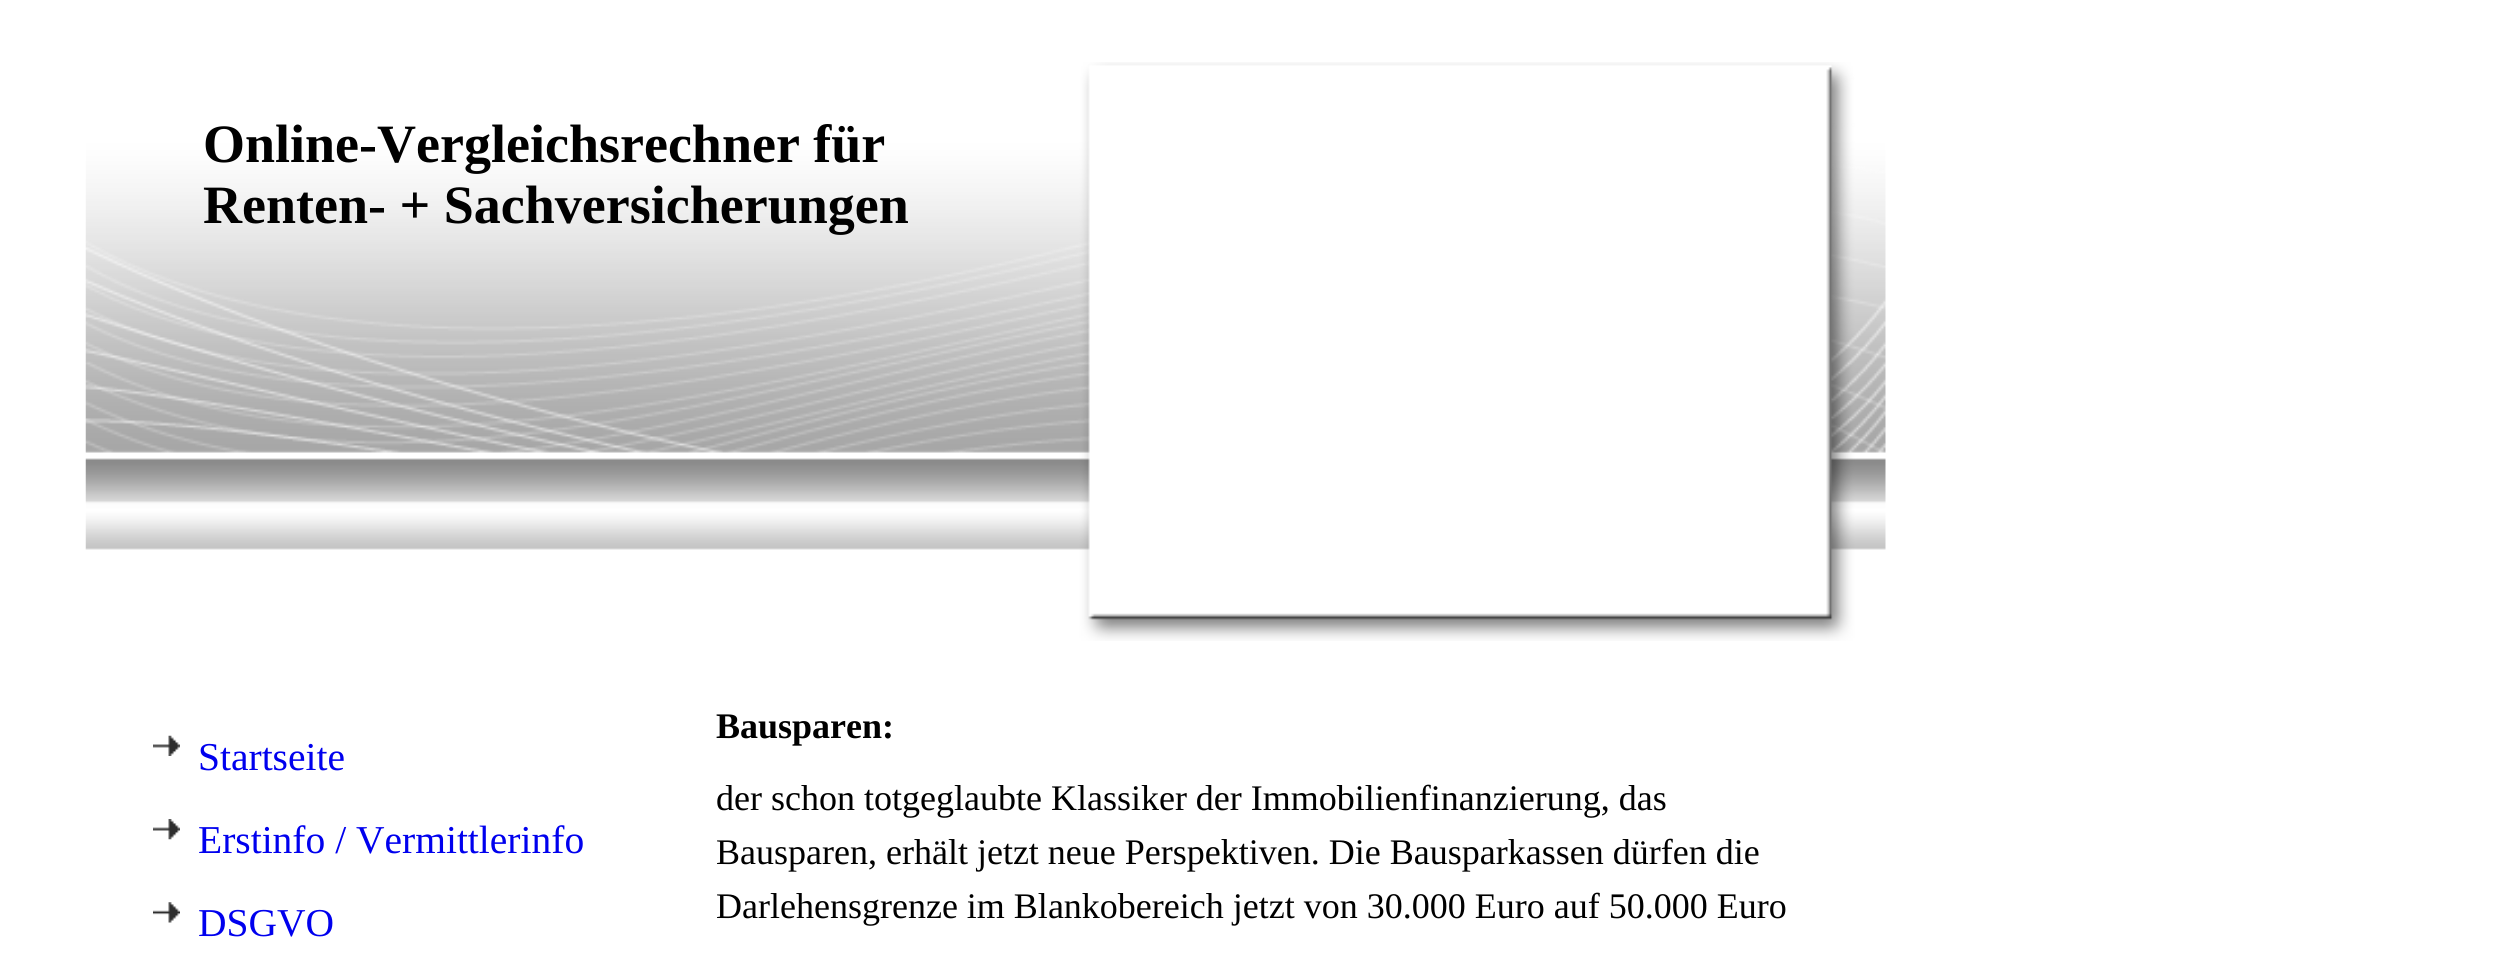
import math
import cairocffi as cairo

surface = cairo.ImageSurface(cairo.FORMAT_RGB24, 2509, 963)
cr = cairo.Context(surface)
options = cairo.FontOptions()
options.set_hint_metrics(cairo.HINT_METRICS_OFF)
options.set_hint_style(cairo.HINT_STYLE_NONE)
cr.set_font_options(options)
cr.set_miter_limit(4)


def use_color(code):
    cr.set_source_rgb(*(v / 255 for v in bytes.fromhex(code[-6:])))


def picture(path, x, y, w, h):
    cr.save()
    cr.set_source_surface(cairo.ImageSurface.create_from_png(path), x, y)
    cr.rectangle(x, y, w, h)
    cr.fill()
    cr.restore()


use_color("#ffffff")
cr.paint()
picture("img1.png", 85, 62, 1801, 579)
cr.select_font_face("Liberation Serif", cairo.FONT_SLANT_NORMAL, cairo.FONT_WEIGHT_BOLD)
cr.set_font_size(54)
use_color("#000000")
cr.move_to(203, 162)
cr.show_text("Online-Vergleichsrechner für")
cr.move_to(203, 223)
cr.show_text("Renten- + Sachversicherungen")
picture("img2.png", 153, 735, 27, 21)
cr.select_font_face("Liberation Serif")
cr.set_font_size(39.5)
use_color("#0000ee")
cr.move_to(198, 770)
cr.show_text("Startseite")
picture("img3.png", 153, 819, 27, 21)
cr.move_to(198, 853)
cr.show_text("Erstinfo / Vermittlerinfo")
picture("img4.png", 153, 902, 27, 21)
cr.move_to(198, 936)
cr.show_text("DSGVO")
cr.select_font_face("Liberation Serif", cairo.FONT_SLANT_NORMAL, cairo.FONT_WEIGHT_BOLD)
cr.set_font_size(36)
use_color("#000000")
cr.move_to(716, 738)
cr.show_text("Bausparen:")
cr.select_font_face("Liberation Serif")
cr.move_to(716, 810)
cr.show_text("der schon totgeglaubte Klassiker der Immobilienfinanzierung, das")
cr.move_to(716, 864)
cr.show_text("Bausparen, erhält jetzt neue Perspektiven. Die Bausparkassen dürfen die")
cr.move_to(716, 918)
cr.show_text("Darlehensgrenze im Blankobereich jetzt von 30.000 Euro auf 50.000 Euro")
surface.write_to_png("result.png")
